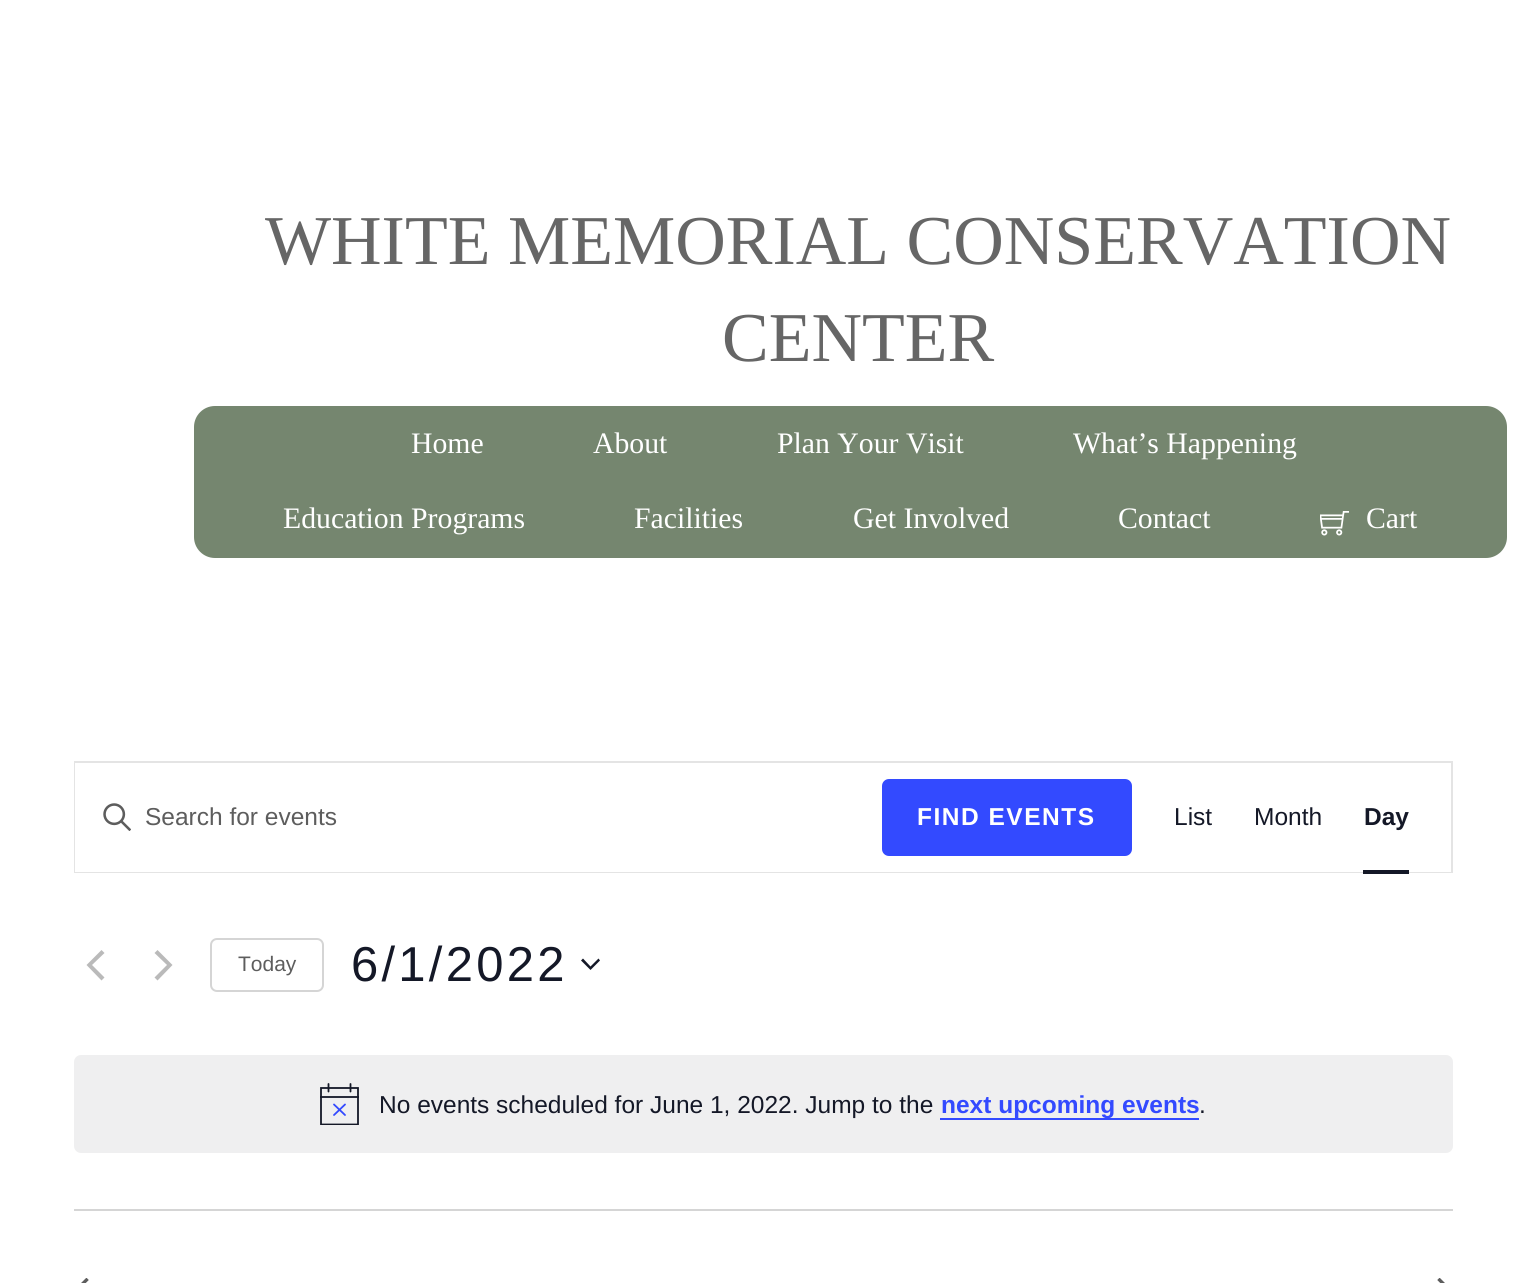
import math
import cairocffi as cairo

surface = cairo.ImageSurface(cairo.FORMAT_RGB24, 1526, 1283)
cr = cairo.Context(surface)
options = cairo.FontOptions()
options.set_hint_metrics(cairo.HINT_METRICS_OFF)
options.set_hint_style(cairo.HINT_STYLE_NONE)
cr.set_font_options(options)
cr.set_miter_limit(4)


def use_color(code):
    cr.set_source_rgb(*(v / 255 for v in bytes.fromhex(code[-6:])))


def spaced_text(x, y, s, letter, word):
    cr.move_to(x, y)
    for ch in s:
        cr.show_text(ch)
        cr.rel_move_to(letter + word * (ch == ' '), 0)


def round_rect(x, y, w, h, r):
    cr.new_sub_path()
    for i, (u, v) in enumerate([(x + w - r, y + h - r), (x + r, y + h - r), (x + r, y + r), (x + w - r, y + r)]):
        cr.arc(u, v, r, i * math.pi / 2, (i + 1) * math.pi / 2)
    cr.close_path()


def picture(path, x, y, w, h):
    cr.save()
    cr.set_source_surface(cairo.ImageSurface.create_from_png(path), x, y)
    cr.rectangle(x, y, w, h)
    cr.fill()
    cr.restore()


use_color("#ffffff")
cr.paint()
cr.select_font_face("Liberation Serif")
cr.set_font_size(70)
use_color("#666666")
cr.move_to(265, 264)
cr.show_text("WHITE MEMORIAL CONSERVATION")
cr.move_to(722, 361)
cr.show_text("CENTER")
use_color("#75866f")
round_rect(194, 406, 1313, 152, 21)
cr.fill()
cr.set_font_size(29.75)
use_color("#ffffff")
cr.move_to(411, 453)
cr.show_text("Home")
cr.move_to(593, 453)
cr.show_text("About")
cr.move_to(777, 453)
cr.show_text("Plan Your Visit")
cr.move_to(1073, 453)
cr.show_text("What’s Happening")
cr.move_to(283, 528)
cr.show_text("Education Programs")
cr.move_to(634, 528)
cr.show_text("Facilities")
cr.move_to(853, 528)
cr.show_text("Get Involved")
cr.move_to(1118, 528)
cr.show_text("Contact")
picture("img1.png", 1320, 511, 29, 25)
cr.move_to(1366, 528)
cr.show_text("Cart")
cr.rectangle(75, 762, 1377, 110)
use_color("#e4e4e4")
cr.stroke()
use_color("#ffffff")
cr.rectangle(75, 763, 1057, 109)
cr.fill()
picture("img2.png", 103, 803, 28, 28)
cr.select_font_face("Liberation Sans")
cr.set_font_size(24.5)
use_color("#5d5d5d")
cr.move_to(145, 825)
cr.show_text("Search for events")
use_color("#334aff")
round_rect(882, 779, 250, 77, 7)
cr.fill()
cr.select_font_face("Liberation Sans", cairo.FONT_SLANT_NORMAL, cairo.FONT_WEIGHT_BOLD)
use_color("#ffffff")
spaced_text(917, 825, "FIND EVENTS", 1.5, 0)
cr.rectangle(1132, 871, 319, 1)
cr.fill()
cr.select_font_face("Liberation Sans")
use_color("#141827")
cr.move_to(1174, 825)
cr.show_text("List")
cr.move_to(1254, 825)
cr.show_text("Month")
cr.select_font_face("Liberation Sans", cairo.FONT_SLANT_NORMAL, cairo.FONT_WEIGHT_BOLD)
cr.move_to(1364, 825)
cr.show_text("Day")
cr.rectangle(1363, 870, 46, 4)
cr.fill()
use_color("#bababa")
cr.new_path()
cr.move_to(104.5, 977.5)
cr.line_to(101.5, 980.5)
cr.line_to(86.5, 965)
cr.line_to(101.5, 950)
cr.line_to(104.5, 953)
cr.line_to(92, 965)
cr.close_path()
cr.fill()
cr.new_path()
cr.move_to(154.5, 953)
cr.line_to(157.5, 950)
cr.line_to(172.5, 965)
cr.line_to(157.5, 980.5)
cr.line_to(154.5, 977.5)
cr.line_to(167, 965)
cr.close_path()
cr.fill()
round_rect(211, 939, 112, 52, 6)
use_color("#d5d5d5")
cr.stroke()
cr.select_font_face("Liberation Sans")
cr.set_font_size(21)
use_color("#5d5d5d")
cr.move_to(238, 971)
cr.show_text("Today")
cr.set_font_size(49)
use_color("#141827")
spaced_text(351, 981, "6/1/2022", 3.25, 0)
cr.set_fill_rule(cairo.FILL_RULE_EVEN_ODD)
cr.new_path()
cr.move_to(583, 958.5)
cr.line_to(590.5, 966.5)
cr.line_to(598.5, 958.5)
cr.line_to(600, 960.5)
cr.line_to(590.5, 970)
cr.line_to(581, 960.5)
cr.close_path()
cr.fill()
use_color("#efeff0")
round_rect(74, 1055, 1379, 98, 7)
cr.fill()
cr.save()
cr.set_fill_rule(cairo.FILL_RULE_WINDING)
cr.rectangle(320, 1083, 39, 42)
cr.clip()
cr.new_path()
cr.move_to(321, 1088)
cr.line_to(358, 1088)
cr.line_to(358, 1124.5)
cr.line_to(321, 1124.5)
cr.close_path()
use_color("#141827")
cr.set_line_width(1.8)
cr.stroke()
cr.restore()
cr.new_path()
cr.move_to(334, 1104.5)
cr.line_to(345, 1115)
cr.move_to(345, 1104.5)
cr.line_to(334, 1115)
use_color("#334aff")
cr.set_line_width(1.8)
cr.set_line_cap(cairo.LINE_CAP_ROUND)
cr.stroke()
cr.new_path()
cr.move_to(328.5, 1084)
cr.line_to(328.5, 1091.5)
cr.move_to(350.5, 1084)
cr.line_to(350.5, 1091.5)
use_color("#141827")
cr.stroke()
cr.set_source_rgba(0.078, 0.094, 0.153, 0.9)
cr.rectangle(320, 1096, 39, 2)
cr.fill()
cr.set_font_size(24.5)
use_color("#141827")
cr.move_to(379, 1113)
cr.show_text("No events scheduled for June 1, 2022. Jump to the")
use_color("#334aff")
cr.rectangle(940, 1118, 259, 2)
cr.fill()
cr.select_font_face("Liberation Sans", cairo.FONT_SLANT_NORMAL, cairo.FONT_WEIGHT_BOLD)
cr.move_to(941, 1113)
cr.show_text("next upcoming events")
cr.select_font_face("Liberation Sans")
use_color("#141827")
cr.move_to(1199, 1113)
cr.show_text(".")
use_color("#d5d5d5")
cr.rectangle(74, 1209, 1379, 2)
cr.fill()
picture("img3.png", 81, 1278, 8, 5)
picture("img4.png", 1437, 1278, 8, 5)
surface.write_to_png("result.png")
